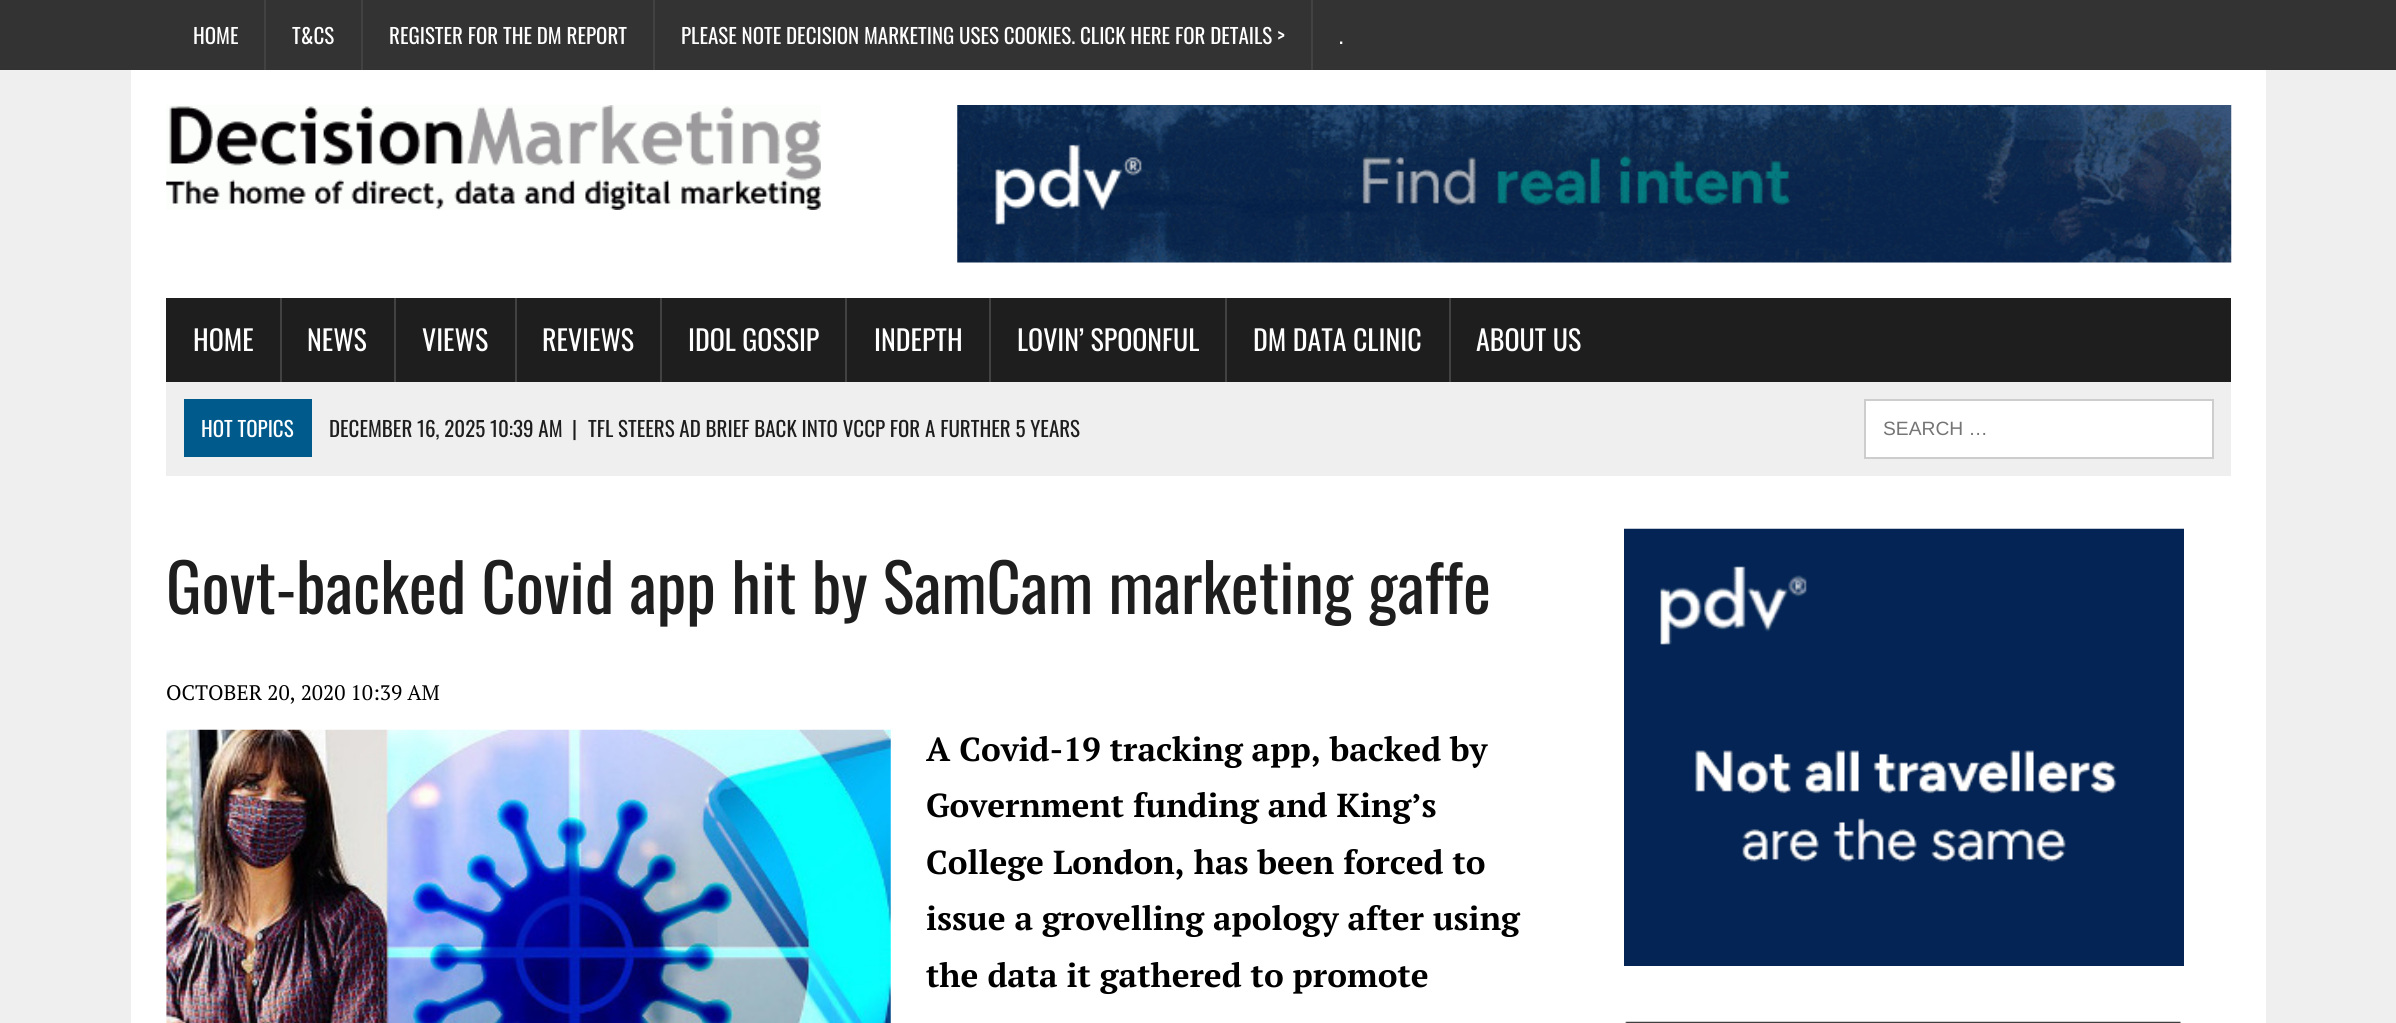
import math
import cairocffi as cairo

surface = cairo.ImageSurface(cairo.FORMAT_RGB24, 2396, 1023)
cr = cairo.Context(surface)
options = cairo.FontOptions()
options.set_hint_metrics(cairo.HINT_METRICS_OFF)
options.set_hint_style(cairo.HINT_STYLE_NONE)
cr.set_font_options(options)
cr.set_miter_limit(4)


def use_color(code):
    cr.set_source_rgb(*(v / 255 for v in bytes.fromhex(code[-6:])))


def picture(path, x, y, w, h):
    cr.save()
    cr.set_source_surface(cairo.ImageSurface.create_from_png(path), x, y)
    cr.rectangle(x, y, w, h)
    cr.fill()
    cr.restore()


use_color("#efefef")
cr.paint()
use_color("#333333")
cr.rectangle(0, 0, 2396, 70)
cr.fill()
cr.select_font_face("Oswald")
cr.set_font_size(21)
use_color("#ffffff")
cr.move_to(193, 44)
cr.show_text("HOME")
use_color("#424242")
cr.rectangle(264, 0, 2, 70)
cr.fill()
use_color("#ffffff")
cr.move_to(292, 44)
cr.show_text("T&CS")
use_color("#424242")
cr.rectangle(361, 0, 2, 70)
cr.fill()
use_color("#ffffff")
cr.move_to(389, 44)
cr.show_text("REGISTER FOR THE DM REPORT")
use_color("#424242")
cr.rectangle(653, 0, 2, 70)
cr.fill()
use_color("#ffffff")
cr.move_to(681, 44)
cr.show_text("PLEASE NOTE DECISION MARKETING USES COOKIES. CLICK HERE FOR DETAILS >")
use_color("#424242")
cr.rectangle(1311, 0, 2, 70)
cr.fill()
use_color("#ffffff")
cr.move_to(1339, 44)
cr.show_text(".")
cr.rectangle(131, 70, 2135, 953)
cr.fill()
picture("img1.png", 166, 105, 655, 105)
picture("img2.png", 957, 105, 1275, 158)
use_color("#1f1e1e")
cr.rectangle(166, 298, 2065, 84)
cr.fill()
cr.set_font_size(28)
use_color("#ffffff")
cr.move_to(193, 351)
cr.show_text("HOME")
use_color("#424242")
cr.rectangle(280, 298, 2, 84)
cr.fill()
use_color("#ffffff")
cr.move_to(307, 351)
cr.show_text("NEWS")
use_color("#424242")
cr.rectangle(394, 298, 2, 84)
cr.fill()
use_color("#ffffff")
cr.move_to(422, 351)
cr.show_text("VIEWS")
use_color("#424242")
cr.rectangle(515, 298, 2, 84)
cr.fill()
use_color("#ffffff")
cr.move_to(542, 351)
cr.show_text("REVIEWS")
use_color("#424242")
cr.rectangle(660, 298, 2, 84)
cr.fill()
use_color("#ffffff")
cr.move_to(688, 351)
cr.show_text("IDOL GOSSIP")
use_color("#424242")
cr.rectangle(845, 298, 2, 84)
cr.fill()
use_color("#ffffff")
cr.move_to(874, 351)
cr.show_text("INDEPTH")
use_color("#424242")
cr.rectangle(989, 298, 2, 84)
cr.fill()
use_color("#ffffff")
cr.move_to(1017, 351)
cr.show_text("LOVIN’ SPOONFUL")
use_color("#424242")
cr.rectangle(1225, 298, 2, 84)
cr.fill()
use_color("#ffffff")
cr.move_to(1253, 351)
cr.show_text("DM DATA CLINIC")
use_color("#424242")
cr.rectangle(1449, 298, 2, 84)
cr.fill()
use_color("#ffffff")
cr.move_to(1476, 351)
cr.show_text("ABOUT US")
use_color("#efefef")
cr.rectangle(166, 382, 2065, 94)
cr.fill()
use_color("#005a8c")
cr.rectangle(184, 399, 128, 58)
cr.fill()
cr.set_font_size(21)
use_color("#ffffff")
cr.move_to(201, 437)
cr.show_text("HOT TOPICS")
use_color("#1f1e1e")
cr.move_to(329, 437)
cr.show_text("DECEMBER 16, 2025 10:39 AM")
cr.move_to(572, 437)
cr.show_text("|")
cr.move_to(588, 437)
cr.show_text("TFL STEERS AD BRIEF BACK INTO VCCP FOR A FURTHER 5 YEARS")
use_color("#ffffff")
cr.rectangle(1865, 400, 348, 58)
cr.fill_preserve()
use_color("#cdcdcd")
cr.stroke()
cr.select_font_face("Liberation Sans")
cr.set_font_size(19.25)
use_color("#757575")
cr.move_to(1883, 435)
cr.show_text("SEARCH …")
cr.select_font_face("Oswald")
cr.set_font_size(66.5)
use_color("#1f1e1e")
cr.move_to(166, 614)
cr.show_text("Govt-backed Covid app hit by SamCam marketing gaffe")
cr.select_font_face("PT Serif")
cr.set_font_size(21)
use_color("#000000")
cr.move_to(166, 700)
cr.show_text("OCTOBER 20, 2020 10:39 AM")
picture("img3.png", 166, 729, 725, 294)
cr.select_font_face("PT Serif", cairo.FONT_SLANT_NORMAL, cairo.FONT_WEIGHT_BOLD)
cr.set_font_size(33.25)
cr.move_to(926, 761)
cr.show_text("A Covid-19 tracking app, backed by")
cr.move_to(926, 817)
cr.show_text("Government funding and King’s")
cr.move_to(926, 874)
cr.show_text("College London, has been forced to")
cr.move_to(926, 930)
cr.show_text("issue a grovelling apology after using")
cr.move_to(926, 987)
cr.show_text("the data it gathered to promote")
picture("img4.png", 1624, 528, 560, 438)
picture("img5.png", 1625, 1021, 556, 2)
surface.write_to_png("result.png")
